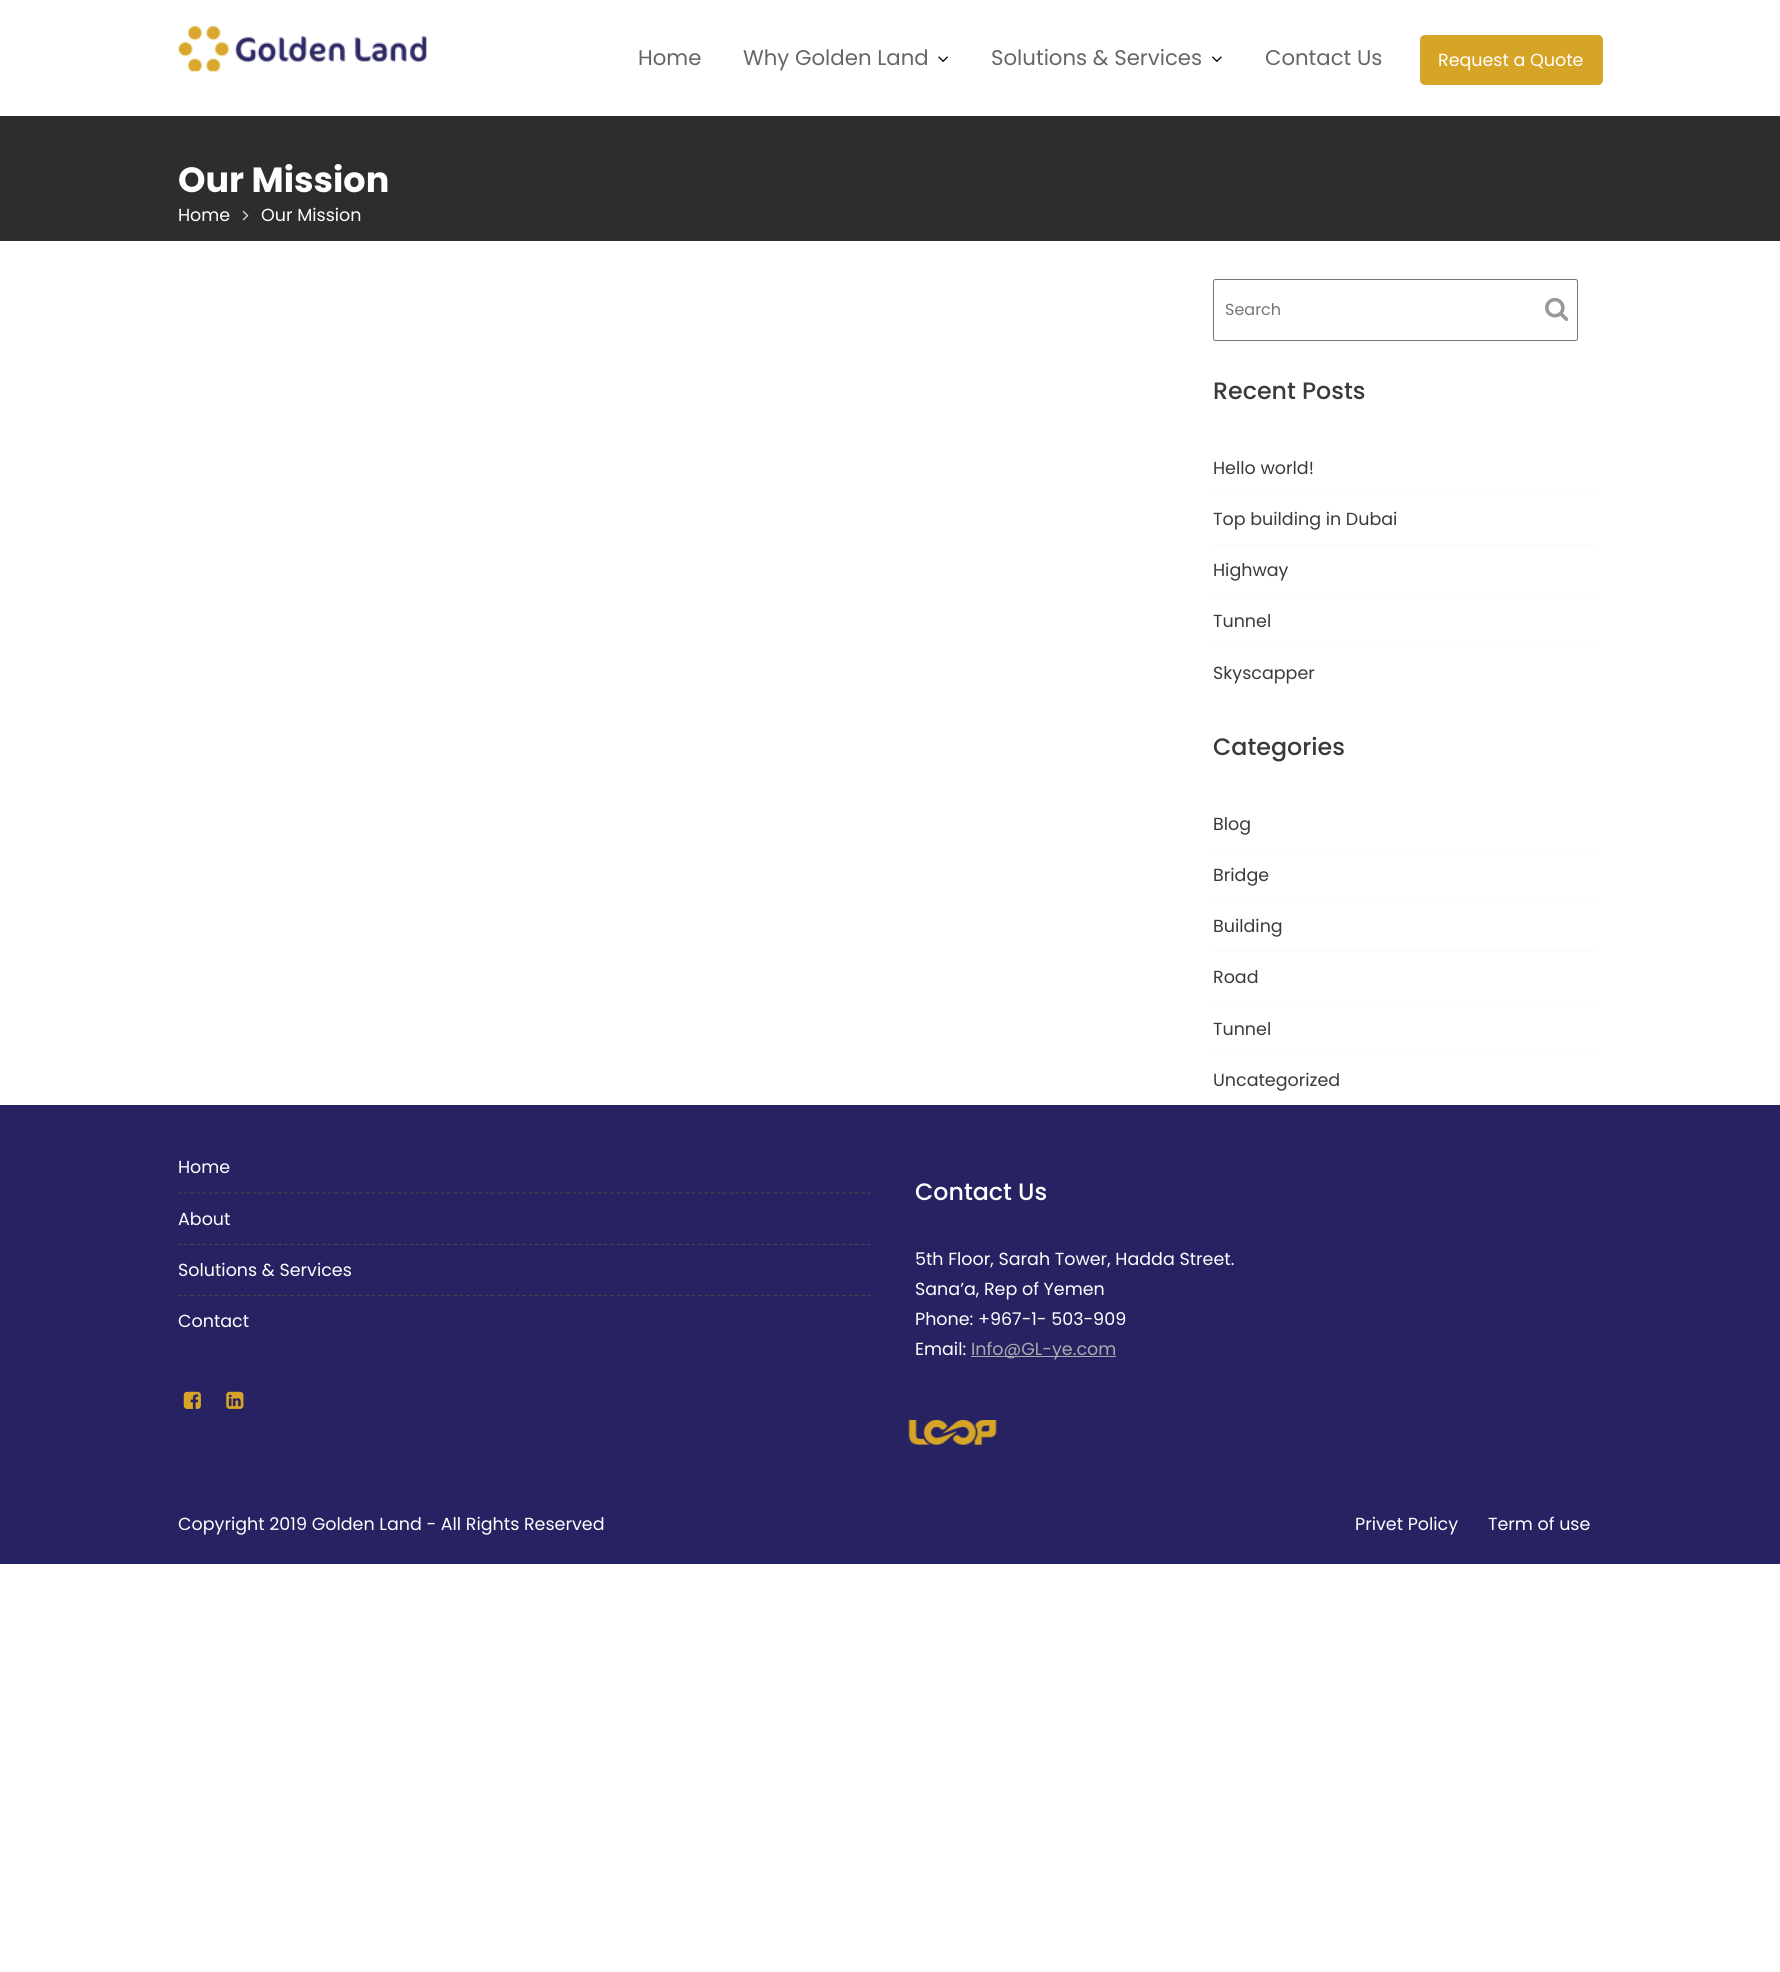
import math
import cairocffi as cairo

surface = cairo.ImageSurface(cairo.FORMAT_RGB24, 1780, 1972)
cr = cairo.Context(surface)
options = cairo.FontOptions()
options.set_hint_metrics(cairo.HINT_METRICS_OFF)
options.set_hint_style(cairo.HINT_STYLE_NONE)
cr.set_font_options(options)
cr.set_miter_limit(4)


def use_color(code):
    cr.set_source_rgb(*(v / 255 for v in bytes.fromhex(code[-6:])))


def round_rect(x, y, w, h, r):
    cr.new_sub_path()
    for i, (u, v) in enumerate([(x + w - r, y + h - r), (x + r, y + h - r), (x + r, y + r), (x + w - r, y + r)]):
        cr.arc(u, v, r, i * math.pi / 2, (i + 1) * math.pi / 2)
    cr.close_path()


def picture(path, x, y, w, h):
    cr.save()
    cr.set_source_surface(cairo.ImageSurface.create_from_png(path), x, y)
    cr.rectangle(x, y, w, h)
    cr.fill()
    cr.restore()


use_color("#ffffff")
cr.paint()
picture("img1.png", 178, 26, 249, 46)
cr.select_font_face("Poppins")
cr.set_font_size(21.25)
use_color("#666666")
cr.move_to(638, 65)
cr.show_text("Home")
cr.move_to(743, 65)
cr.show_text("Why Golden Land")
picture("img2.png", 938, 56, 10, 6)
cr.move_to(991, 65)
cr.show_text("Solutions & Services")
picture("img3.png", 1212, 56, 10, 6)
cr.move_to(1265, 65)
cr.show_text("Contact Us")
use_color("#d6a427")
round_rect(1420, 35, 183, 50, 5)
cr.fill()
cr.set_font_size(17.5)
use_color("#ffffff")
cr.move_to(1438, 66)
cr.show_text("Request a Quote")
use_color("#2d2d2d")
cr.rectangle(0, 116, 1780, 125)
cr.fill()
cr.select_font_face("Poppins", cairo.FONT_SLANT_NORMAL, cairo.FONT_WEIGHT_BOLD)
cr.set_font_size(35)
use_color("#ffffff")
cr.move_to(178, 192)
cr.show_text("Our Mission")
cr.select_font_face("Poppins")
cr.set_font_size(17.5)
cr.move_to(178, 221)
cr.show_text("Home")
picture("img4.png", 242, 210, 7, 11)
cr.move_to(261, 221)
cr.show_text("Our Mission")
round_rect(1213.5, 279.5, 364, 61, 2)
use_color("#767676")
cr.set_line_width(1)
cr.stroke()
cr.set_font_size(16)
use_color("#757575")
cr.move_to(1225, 315)
cr.show_text("Search")
picture("img5.png", 1545, 297, 24, 24)
cr.select_font_face("Poppins Medium")
cr.set_font_size(23.75)
use_color("#3a3a3a")
cr.move_to(1213, 399)
cr.show_text("Recent Posts")
use_color("#fafafa")
cr.rectangle(1213, 493, 381, 1)
cr.fill()
cr.select_font_face("Poppins")
cr.set_font_size(17.5)
use_color("#3a3a3a")
cr.move_to(1213, 474)
cr.show_text("Hello world!")
use_color("#fafafa")
cr.rectangle(1213, 544, 381, 1)
cr.fill()
use_color("#3a3a3a")
cr.move_to(1213, 525)
cr.show_text("Top building in Dubai")
use_color("#fafafa")
cr.rectangle(1213, 595, 381, 1)
cr.fill()
use_color("#3a3a3a")
cr.move_to(1213, 576)
cr.show_text("Highway")
use_color("#fafafa")
cr.rectangle(1213, 646, 381, 1)
cr.fill()
use_color("#3a3a3a")
cr.move_to(1213, 627)
cr.show_text("Tunnel")
cr.move_to(1213, 679)
cr.show_text("Skyscapper")
cr.select_font_face("Poppins Medium")
cr.set_font_size(23.75)
cr.move_to(1213, 755)
cr.show_text("Categories")
use_color("#fafafa")
cr.rectangle(1213, 849, 381, 1)
cr.fill()
cr.select_font_face("Poppins")
cr.set_font_size(17.5)
use_color("#3a3a3a")
cr.move_to(1213, 830)
cr.show_text("Blog")
use_color("#fafafa")
cr.rectangle(1213, 900, 381, 1)
cr.fill()
use_color("#3a3a3a")
cr.move_to(1213, 881)
cr.show_text("Bridge")
use_color("#fafafa")
cr.rectangle(1213, 951, 381, 1)
cr.fill()
use_color("#3a3a3a")
cr.move_to(1213, 932)
cr.show_text("Building")
use_color("#fafafa")
cr.rectangle(1213, 1003, 381, 1)
cr.fill()
use_color("#3a3a3a")
cr.move_to(1213, 983)
cr.show_text("Road")
use_color("#fafafa")
cr.rectangle(1213, 1054, 381, 1)
cr.fill()
use_color("#3a3a3a")
cr.move_to(1213, 1035)
cr.show_text("Tunnel")
cr.move_to(1213, 1086)
cr.show_text("Uncategorized")
use_color("#272262")
cr.rectangle(0, 1105, 1780, 459)
cr.fill()
cr.new_path()
cr.move_to(177.5, 1193)
cr.line_to(871, 1193)
use_color("#444444")
cr.set_line_width(1.2)
cr.set_dash([3.75, 2.52])
cr.stroke()
use_color("#ffffff")
cr.move_to(178, 1173)
cr.show_text("Home")
cr.new_path()
cr.move_to(177.5, 1244.5)
cr.line_to(871, 1244.5)
use_color("#444444")
cr.stroke()
use_color("#ffffff")
cr.move_to(178, 1225)
cr.show_text("About")
cr.new_path()
cr.move_to(177.5, 1295.5)
cr.line_to(871, 1295.5)
use_color("#444444")
cr.stroke()
use_color("#ffffff")
cr.move_to(178, 1276)
cr.show_text("Solutions & Services")
cr.move_to(178, 1327)
cr.show_text("Contact")
picture("img6.png", 183, 1391, 18, 18)
picture("img7.png", 226, 1391, 18, 18)
cr.select_font_face("Poppins Medium")
cr.set_font_size(23.75)
cr.move_to(915, 1200)
cr.show_text("Contact Us")
cr.select_font_face("Poppins")
cr.set_font_size(17.5)
cr.move_to(915, 1265)
cr.show_text("5th Floor, Sarah Tower, Hadda Street.")
cr.move_to(915, 1295)
cr.show_text("Sana’a, Rep of Yemen")
cr.move_to(915, 1325)
cr.show_text("Phone: +967-1- 503-909")
cr.move_to(915, 1355)
cr.show_text("Email:")
use_color("#aaaaaa")
cr.rectangle(971, 1356, 145, 1)
cr.fill()
cr.move_to(971, 1355)
cr.show_text("Info@GL-ye.com")
picture("img8.png", 908, 1420, 89, 25)
use_color("#ffffff")
cr.move_to(178, 1530)
cr.show_text("Copyright 2019 Golden Land - All Rights Reserved")
cr.move_to(1355, 1530)
cr.show_text("Privet Policy")
cr.move_to(1488, 1530)
cr.show_text("Term of use")
surface.write_to_png("result.png")
